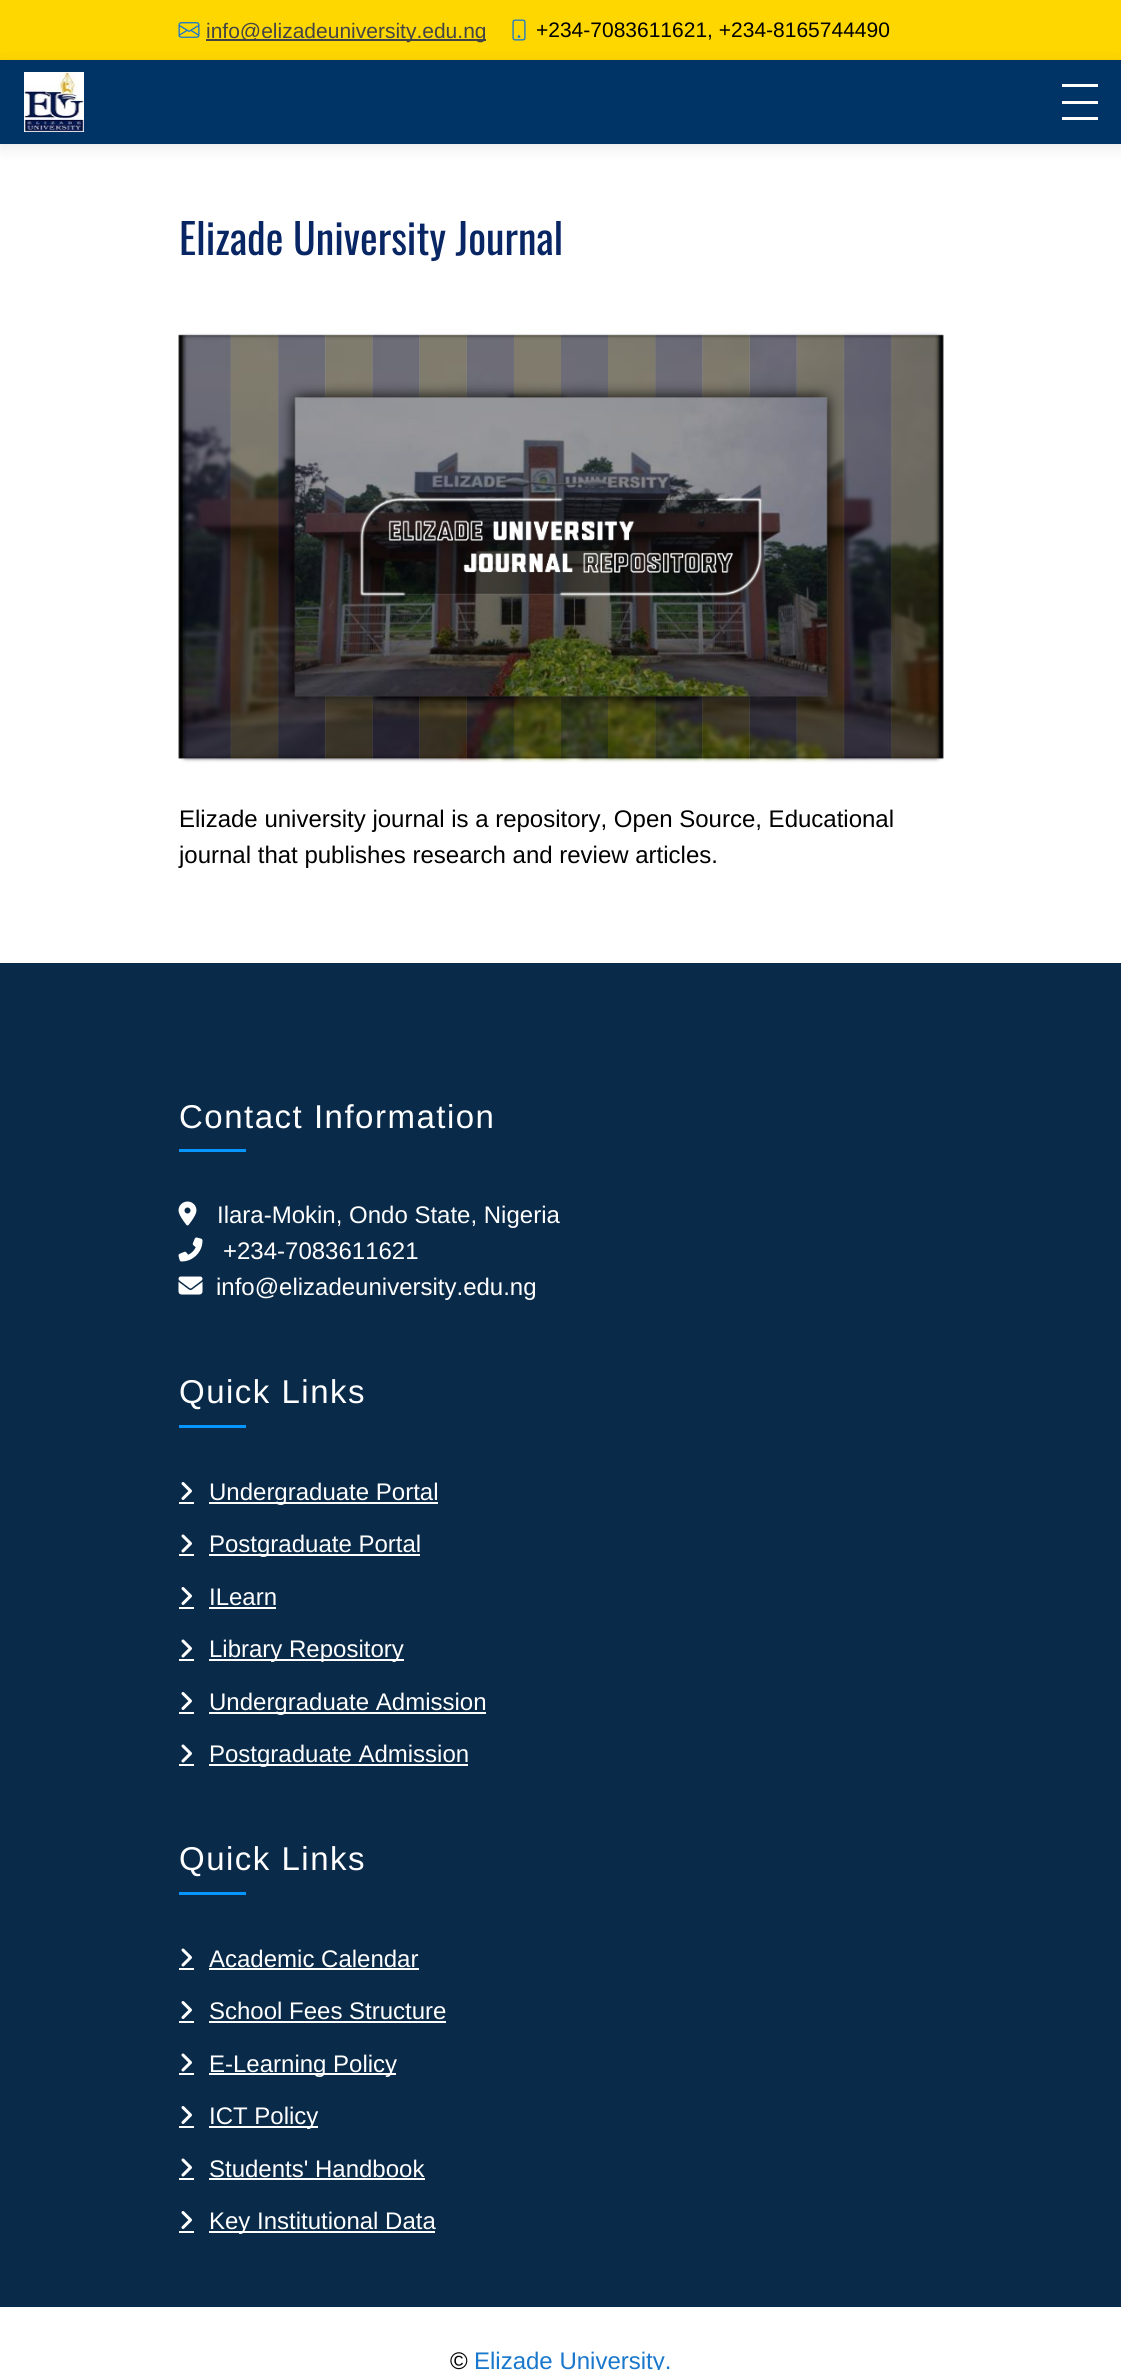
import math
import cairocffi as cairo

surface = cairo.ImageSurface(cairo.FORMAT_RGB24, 1121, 2370)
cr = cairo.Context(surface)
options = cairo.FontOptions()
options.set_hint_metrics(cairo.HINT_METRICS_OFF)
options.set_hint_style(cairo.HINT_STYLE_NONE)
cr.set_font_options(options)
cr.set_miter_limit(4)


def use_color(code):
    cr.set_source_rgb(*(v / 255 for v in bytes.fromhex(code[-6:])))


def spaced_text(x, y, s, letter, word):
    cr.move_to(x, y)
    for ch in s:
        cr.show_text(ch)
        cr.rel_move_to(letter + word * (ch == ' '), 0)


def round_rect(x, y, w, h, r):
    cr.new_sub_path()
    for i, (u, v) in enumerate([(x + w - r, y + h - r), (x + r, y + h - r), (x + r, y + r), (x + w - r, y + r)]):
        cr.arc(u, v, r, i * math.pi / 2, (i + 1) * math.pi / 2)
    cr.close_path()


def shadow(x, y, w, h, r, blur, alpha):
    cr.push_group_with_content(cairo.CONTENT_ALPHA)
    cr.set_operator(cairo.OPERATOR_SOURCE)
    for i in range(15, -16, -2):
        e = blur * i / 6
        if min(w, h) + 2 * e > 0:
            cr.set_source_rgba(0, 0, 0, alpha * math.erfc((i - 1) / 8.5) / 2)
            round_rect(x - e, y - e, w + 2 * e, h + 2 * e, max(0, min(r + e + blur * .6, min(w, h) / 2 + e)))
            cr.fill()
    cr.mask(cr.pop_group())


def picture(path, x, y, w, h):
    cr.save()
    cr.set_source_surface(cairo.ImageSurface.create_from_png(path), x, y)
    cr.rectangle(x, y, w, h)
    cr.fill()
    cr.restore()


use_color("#ffffff")
cr.paint()
use_color("#ffd700")
cr.rectangle(0, 0, 1121, 60)
cr.fill()
picture("img1.png", 178, 22, 22, 16)
use_color("#444444")
cr.rectangle(206, 39, 280, 2)
cr.fill()
cr.select_font_face("Liberation Sans")
cr.set_font_size(21)
cr.move_to(206, 38)
cr.show_text("info@elizadeuniversity.edu.ng")
picture("img2.png", 512, 19, 14, 22)
use_color("#000000")
cr.move_to(536, 37)
cr.show_text("+234-7083611621, +234-8165744490")
use_color("#000000")
shadow(0, 63, 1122, 84, 0, 7.5, 0.1)
use_color("#003366")
cr.rectangle(0, 60, 1121, 84)
cr.fill()
picture("img3.png", 24, 72, 60, 60)
use_color("#ffffff")
cr.rectangle(1062, 84, 36, 3)
cr.fill()
cr.rectangle(1062, 101, 36, 3)
cr.fill()
cr.rectangle(1062, 117, 36, 3)
cr.fill()
cr.select_font_face("Oswald")
cr.set_font_size(42)
use_color("#082664")
cr.move_to(179, 255)
cr.show_text("Elizade University Journal")
picture("img4.png", 178, 332, 766, 431)
cr.select_font_face("Liberation Sans")
cr.set_font_size(24)
use_color("#000000")
cr.move_to(179, 827)
cr.show_text("Elizade university journal is a repository, Open Source, Educational")
cr.move_to(179, 863)
cr.show_text("journal that publishes research and review articles.")
use_color("#092a49")
cr.rectangle(0, 963, 1121, 1344)
cr.fill()
cr.set_font_size(33)
use_color("#ffffff")
spaced_text(179, 1128, "Contact Information", 1.5, 0)
use_color("#0796fe")
cr.rectangle(179, 1149, 67, 3)
cr.fill()
picture("img5.png", 178, 1201, 19, 25)
cr.set_font_size(24)
use_color("#ffffff")
cr.move_to(217, 1223)
cr.show_text("Ilara-Mokin, Ondo State, Nigeria")
picture("img6.png", 178, 1237, 25, 25)
cr.move_to(223, 1259)
cr.show_text("+234-7083611621")
picture("img7.png", 178, 1276, 25, 19)
cr.move_to(216, 1295)
cr.show_text("info@elizadeuniversity.edu.ng")
cr.set_font_size(33)
spaced_text(179, 1403, "Quick Links", 1.5, 0)
use_color("#0796fe")
cr.rectangle(179, 1425, 67, 3)
cr.fill()
picture("img8.png", 181, 1482, 11, 18)
use_color("#ffffff")
cr.rectangle(209, 1502, 229, 2)
cr.fill()
cr.set_font_size(24)
cr.move_to(209, 1500)
cr.show_text("Undergraduate Portal")
cr.rectangle(179, 1502, 15, 2)
cr.fill()
picture("img9.png", 181, 1534, 11, 19)
cr.rectangle(209, 1554, 211, 2)
cr.fill()
cr.move_to(209, 1552)
cr.show_text("Postgraduate Portal")
cr.rectangle(179, 1554, 15, 2)
cr.fill()
picture("img8.png", 181, 1587, 11, 18)
cr.move_to(209, 1605)
cr.show_text("ILearn")
cr.rectangle(209, 1607, 67, 2)
cr.fill()
cr.rectangle(179, 1607, 15, 2)
cr.fill()
picture("img9.png", 181, 1639, 11, 19)
cr.rectangle(209, 1659, 195, 2)
cr.fill()
cr.move_to(209, 1657)
cr.show_text("Library Repository")
cr.rectangle(179, 1659, 15, 2)
cr.fill()
picture("img8.png", 181, 1692, 11, 18)
cr.rectangle(209, 1712, 277, 2)
cr.fill()
cr.move_to(209, 1710)
cr.show_text("Undergraduate Admission")
cr.rectangle(179, 1712, 15, 2)
cr.fill()
picture("img9.png", 181, 1744, 11, 19)
cr.rectangle(209, 1764, 259, 2)
cr.fill()
cr.move_to(209, 1762)
cr.show_text("Postgraduate Admission")
cr.rectangle(179, 1764, 15, 2)
cr.fill()
cr.set_font_size(33)
spaced_text(179, 1870, "Quick Links", 1.5, 0)
use_color("#0796fe")
cr.rectangle(179, 1892, 67, 3)
cr.fill()
picture("img9.png", 181, 1948, 11, 19)
cr.set_font_size(24)
use_color("#ffffff")
cr.move_to(209, 1967)
cr.show_text("Academic Calendar")
cr.rectangle(209, 1968, 210, 2)
cr.fill()
cr.rectangle(179, 1968, 15, 2)
cr.fill()
picture("img8.png", 181, 2001, 11, 18)
cr.move_to(209, 2019)
cr.show_text("School Fees Structure")
cr.rectangle(209, 2021, 237, 2)
cr.fill()
cr.rectangle(179, 2021, 15, 2)
cr.fill()
picture("img9.png", 181, 2053, 11, 19)
cr.rectangle(209, 2073, 187, 2)
cr.fill()
cr.move_to(209, 2072)
cr.show_text("E-Learning Policy")
cr.rectangle(179, 2073, 15, 2)
cr.fill()
picture("img8.png", 181, 2106, 11, 18)
cr.rectangle(209, 2126, 109, 2)
cr.fill()
cr.move_to(209, 2124)
cr.show_text("ICT Policy")
cr.rectangle(179, 2126, 15, 2)
cr.fill()
picture("img9.png", 181, 2158, 11, 19)
cr.move_to(209, 2177)
cr.show_text("Students' Handbook")
cr.rectangle(209, 2178, 216, 2)
cr.fill()
cr.rectangle(179, 2178, 15, 2)
cr.fill()
picture("img8.png", 181, 2211, 11, 18)
cr.rectangle(209, 2231, 226, 2)
cr.fill()
cr.move_to(209, 2229)
cr.show_text("Key Institutional Data")
cr.rectangle(179, 2231, 15, 2)
cr.fill()
use_color("#000000")
cr.move_to(450, 2369)
cr.show_text("©")
use_color("#1977cc")
cr.move_to(474, 2369)
cr.show_text("Elizade University.")
surface.write_to_png("result.png")
